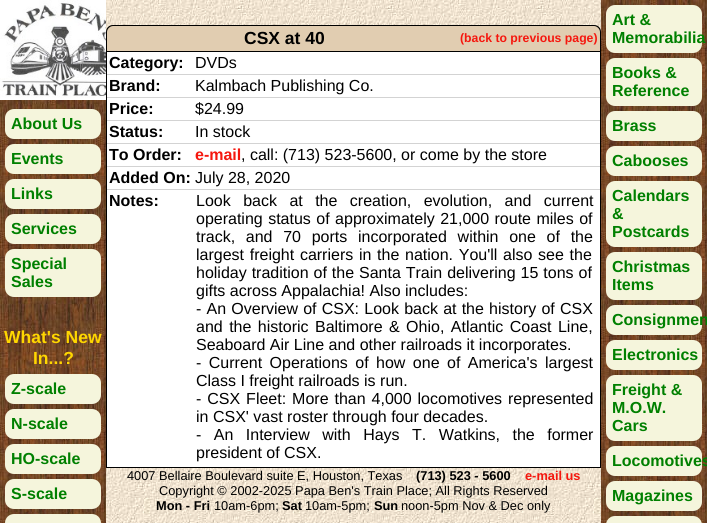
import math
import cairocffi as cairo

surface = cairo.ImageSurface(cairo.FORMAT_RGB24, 707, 523)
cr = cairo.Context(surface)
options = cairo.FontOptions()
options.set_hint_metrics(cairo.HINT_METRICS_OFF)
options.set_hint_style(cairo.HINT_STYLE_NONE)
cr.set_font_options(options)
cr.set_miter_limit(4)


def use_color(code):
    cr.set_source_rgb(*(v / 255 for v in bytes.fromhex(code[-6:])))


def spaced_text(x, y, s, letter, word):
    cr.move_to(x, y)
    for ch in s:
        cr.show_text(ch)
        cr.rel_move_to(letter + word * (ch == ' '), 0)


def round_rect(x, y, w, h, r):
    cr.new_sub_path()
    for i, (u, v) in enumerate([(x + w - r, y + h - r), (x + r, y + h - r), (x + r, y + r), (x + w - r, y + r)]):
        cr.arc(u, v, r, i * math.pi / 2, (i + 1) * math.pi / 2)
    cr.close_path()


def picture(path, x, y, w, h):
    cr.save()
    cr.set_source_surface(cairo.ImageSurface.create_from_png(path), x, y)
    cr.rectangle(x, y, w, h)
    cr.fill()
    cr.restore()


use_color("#ffffff")
cr.paint()
picture("img1.png", 106, 0, 495, 523)
picture("img2.png", 0, 100, 106, 423)
picture("img3.png", 0, 0, 106, 100)
use_color("#f5f5dc")
round_rect(5, 109, 96, 30, 9)
cr.fill()
cr.select_font_face("Liberation Sans", cairo.FONT_SLANT_NORMAL, cairo.FONT_WEIGHT_BOLD)
cr.set_font_size(16)
use_color("#008000")
cr.move_to(11, 129)
cr.show_text("About Us")
use_color("#f5f5dc")
round_rect(5, 144, 96, 30, 9)
cr.fill()
use_color("#008000")
cr.move_to(11, 164)
cr.show_text("Events")
use_color("#f5f5dc")
round_rect(5, 179, 96, 30, 9)
cr.fill()
use_color("#008000")
cr.move_to(11, 199)
cr.show_text("Links")
use_color("#f5f5dc")
round_rect(5, 214, 96, 30, 9)
cr.fill()
use_color("#008000")
cr.move_to(11, 234)
cr.show_text("Services")
use_color("#f5f5dc")
round_rect(5, 249, 96, 48, 9)
cr.fill()
use_color("#008000")
cr.move_to(11, 269)
cr.show_text("Special")
cr.move_to(11, 287)
cr.show_text("Sales")
cr.set_font_size(17.5)
use_color("#ffd700")
cr.move_to(4, 343)
cr.show_text("What's New")
cr.move_to(33, 364)
cr.show_text("In...?")
use_color("#f5f5dc")
round_rect(5, 374, 96, 30, 9)
cr.fill()
cr.set_font_size(16)
use_color("#008000")
cr.move_to(11, 394)
cr.show_text("Z-scale")
use_color("#f5f5dc")
round_rect(5, 409, 96, 30, 9)
cr.fill()
use_color("#008000")
cr.move_to(11, 429)
cr.show_text("N-scale")
use_color("#f5f5dc")
round_rect(5, 444, 96, 30, 9)
cr.fill()
use_color("#008000")
cr.move_to(11, 464)
cr.show_text("HO-scale")
use_color("#f5f5dc")
round_rect(5, 479, 96, 30, 9)
cr.fill()
use_color("#008000")
cr.move_to(11, 499)
cr.show_text("S-scale")
use_color("#f5f5dc")
cr.new_path()
cr.move_to(14, 514)
cr.line_to(92, 514)
cr.curve_to(97, 514, 101, 518, 101, 523)
cr.line_to(5, 523)
cr.curve_to(5, 518, 9, 514, 14, 514)
cr.close_path()
cr.fill()
use_color("#e1cdb1")
cr.new_path()
cr.move_to(113, 25)
cr.line_to(594, 25)
cr.curve_to(598, 25, 601, 28, 601, 32)
cr.line_to(601, 51)
cr.line_to(106, 51)
cr.line_to(106, 32)
cr.curve_to(106, 28, 109, 25, 113, 25)
cr.close_path()
cr.fill()
use_color("#000000")
cr.set_fill_rule(cairo.FILL_RULE_EVEN_ODD)
cr.new_path()
cr.move_to(113, 25)
cr.line_to(594, 25)
cr.curve_to(598, 25, 601, 28, 601, 32)
cr.line_to(601, 51)
cr.line_to(106, 51)
cr.line_to(106, 32)
cr.curve_to(106, 28, 109, 25, 113, 25)
cr.close_path()
cr.move_to(113, 26)
cr.line_to(594, 26)
cr.curve_to(597, 26, 600, 29, 600, 32)
cr.line_to(600, 51)
cr.line_to(107, 51)
cr.line_to(107, 32)
cr.curve_to(107, 29, 110, 26, 113, 26)
cr.close_path()
cr.fill()
cr.set_font_size(17.5)
cr.move_to(244, 44)
cr.show_text("CSX at 40")
cr.set_font_size(12.25)
use_color("#f5170e")
cr.move_to(460, 42)
cr.show_text("(back to previous page)")
use_color("#ffffff")
cr.rectangle(107, 52, 493, 415)
cr.fill()
cr.save()
cr.set_fill_rule(cairo.FILL_RULE_WINDING)
cr.rectangle(106, 0, 495, 467)
cr.clip()
cr.rectangle(106.5, 51.5, 494, 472)
use_color("#000000")
cr.set_line_width(1)
cr.stroke()
cr.restore()
use_color("#d3d3d3")
cr.rectangle(107, 74, 493, 1)
cr.fill()
cr.set_font_size(16)
use_color("#000000")
cr.move_to(109, 68)
cr.show_text("Category:")
cr.select_font_face("Liberation Sans")
cr.move_to(195, 68)
cr.show_text("DVDs")
use_color("#d3d3d3")
cr.rectangle(107, 97, 493, 1)
cr.fill()
cr.select_font_face("Liberation Sans", cairo.FONT_SLANT_NORMAL, cairo.FONT_WEIGHT_BOLD)
use_color("#000000")
cr.move_to(109, 91)
cr.show_text("Brand:")
cr.select_font_face("Liberation Sans")
cr.move_to(195, 91)
cr.show_text("Kalmbach Publishing Co.")
use_color("#d3d3d3")
cr.rectangle(107, 120, 493, 1)
cr.fill()
cr.select_font_face("Liberation Sans", cairo.FONT_SLANT_NORMAL, cairo.FONT_WEIGHT_BOLD)
use_color("#000000")
cr.move_to(109, 114)
cr.show_text("Price:")
cr.select_font_face("Liberation Sans")
cr.move_to(195, 114)
cr.show_text("$24.99")
use_color("#d3d3d3")
cr.rectangle(107, 143, 493, 1)
cr.fill()
cr.select_font_face("Liberation Sans", cairo.FONT_SLANT_NORMAL, cairo.FONT_WEIGHT_BOLD)
use_color("#000000")
cr.move_to(109, 137)
cr.show_text("Status:")
cr.select_font_face("Liberation Sans")
cr.move_to(195, 137)
cr.show_text("In stock")
use_color("#d3d3d3")
cr.rectangle(107, 166, 493, 1)
cr.fill()
cr.select_font_face("Liberation Sans", cairo.FONT_SLANT_NORMAL, cairo.FONT_WEIGHT_BOLD)
use_color("#000000")
cr.move_to(109, 160)
cr.show_text("To Order:")
use_color("#f5170e")
cr.move_to(195, 160)
cr.show_text("e-mail")
cr.select_font_face("Liberation Sans")
use_color("#000000")
cr.move_to(241, 160)
cr.show_text(", call: (713) 523-5600, or come by the store")
use_color("#d3d3d3")
cr.rectangle(107, 189, 493, 1)
cr.fill()
cr.select_font_face("Liberation Sans", cairo.FONT_SLANT_NORMAL, cairo.FONT_WEIGHT_BOLD)
use_color("#000000")
cr.move_to(109, 183)
cr.show_text("Added On:")
cr.select_font_face("Liberation Sans")
cr.move_to(195, 183)
cr.show_text("July 28, 2020")
cr.select_font_face("Liberation Sans", cairo.FONT_SLANT_NORMAL, cairo.FONT_WEIGHT_BOLD)
cr.move_to(109, 206)
cr.show_text("Notes:")
cr.select_font_face("Liberation Sans")
spaced_text(196, 206, "Look back at the creation, evolution, and current", 0, 8)
spaced_text(196, 224, "operating status of approximately 21,000 route miles of", 0, 1)
spaced_text(196, 242, "track, and 70 ports incorporated within one of the", 0, 6.25)
spaced_text(196, 260, "largest freight carriers in the nation. You'll also see the", 0, 1.25)
spaced_text(196, 278, "holiday tradition of the Santa Train delivering 15 tons of", 0, 0.5)
cr.move_to(196, 296)
cr.show_text("gifts across Appalachia! Also includes:")
spaced_text(196, 314, "- An Overview of CSX: Look back at the history of CSX", 0, 0.75)
spaced_text(196, 332, "and the historic Baltimore & Ohio, Atlantic Coast Line,", 0, 2)
cr.move_to(196, 350)
cr.show_text("Seaboard Air Line and other railroads it incorporates.")
spaced_text(196, 368, "- Current Operations of how one of America's largest", 0, 3)
cr.move_to(196, 386)
cr.show_text("Class I freight railroads is run.")
spaced_text(196, 404, "- CSX Fleet: More than 4,000 locomotives represented", 0, 1.5)
cr.move_to(196, 422)
cr.show_text("in CSX' vast roster through four decades.")
spaced_text(196, 440, "- An Interview with Hays T. Watkins, the former", 0, 8)
cr.move_to(196, 458)
cr.show_text("president of CSX.")
cr.rectangle(106, 467, 495, 1)
cr.fill()
cr.set_font_size(12.8)
cr.move_to(127, 480)
cr.show_text("4007 Bellaire Boulevard suite E, Houston, Texas")
cr.select_font_face("Liberation Sans", cairo.FONT_SLANT_NORMAL, cairo.FONT_WEIGHT_BOLD)
cr.move_to(416, 480)
cr.show_text("(713) 523 - 5600")
use_color("#f5170e")
cr.move_to(525, 480)
cr.show_text("e-mail us")
cr.select_font_face("Liberation Sans")
use_color("#000000")
cr.move_to(159, 495)
cr.show_text("Copyright © 2002-2025 Papa Ben's Train Place; All Rights Reserved")
cr.select_font_face("Liberation Sans", cairo.FONT_SLANT_NORMAL, cairo.FONT_WEIGHT_BOLD)
cr.move_to(156, 510)
cr.show_text("Mon - Fri")
cr.select_font_face("Liberation Sans")
cr.move_to(214, 510)
cr.show_text("10am-6pm;")
cr.select_font_face("Liberation Sans", cairo.FONT_SLANT_NORMAL, cairo.FONT_WEIGHT_BOLD)
cr.move_to(282, 510)
cr.show_text("Sat")
cr.select_font_face("Liberation Sans")
cr.move_to(305, 510)
cr.show_text("10am-5pm;")
cr.select_font_face("Liberation Sans", cairo.FONT_SLANT_NORMAL, cairo.FONT_WEIGHT_BOLD)
cr.move_to(374, 510)
cr.show_text("Sun")
cr.select_font_face("Liberation Sans")
cr.move_to(401, 510)
cr.show_text("noon-5pm Nov & Dec only")
picture("img4.png", 601, 0, 106, 523)
use_color("#f5f5dc")
round_rect(606, 5, 96, 48, 9)
cr.fill()
cr.select_font_face("Liberation Sans", cairo.FONT_SLANT_NORMAL, cairo.FONT_WEIGHT_BOLD)
cr.set_font_size(16)
use_color("#008000")
cr.move_to(612, 25)
cr.show_text("Art &")
cr.move_to(612, 43)
cr.show_text("Memorabilia")
use_color("#f5f5dc")
round_rect(606, 58, 96, 48, 9)
cr.fill()
use_color("#008000")
cr.move_to(612, 78)
cr.show_text("Books &")
cr.move_to(612, 96)
cr.show_text("Reference")
use_color("#f5f5dc")
round_rect(606, 111, 96, 30, 9)
cr.fill()
use_color("#008000")
cr.move_to(612, 131)
cr.show_text("Brass")
use_color("#f5f5dc")
round_rect(606, 146, 96, 30, 9)
cr.fill()
use_color("#008000")
cr.move_to(612, 166)
cr.show_text("Cabooses")
use_color("#f5f5dc")
round_rect(606, 181, 96, 66, 9)
cr.fill()
use_color("#008000")
cr.move_to(612, 201)
cr.show_text("Calendars")
cr.move_to(612, 219)
cr.show_text("&")
cr.move_to(612, 237)
cr.show_text("Postcards")
use_color("#f5f5dc")
round_rect(606, 252, 96, 48, 9)
cr.fill()
use_color("#008000")
cr.move_to(612, 272)
cr.show_text("Christmas")
cr.move_to(612, 290)
cr.show_text("Items")
use_color("#f5f5dc")
round_rect(606, 305, 96, 30, 9)
cr.fill()
use_color("#008000")
cr.move_to(612, 325)
cr.show_text("Consignmen")
use_color("#f5f5dc")
round_rect(606, 340, 96, 30, 9)
cr.fill()
use_color("#008000")
cr.move_to(612, 360)
cr.show_text("Electronics")
use_color("#f5f5dc")
round_rect(606, 375, 96, 66, 9)
cr.fill()
use_color("#008000")
cr.move_to(612, 395)
cr.show_text("Freight &")
cr.move_to(612, 413)
cr.show_text("M.O.W.")
cr.move_to(612, 431)
cr.show_text("Cars")
use_color("#f5f5dc")
round_rect(606, 446, 96, 30, 9)
cr.fill()
use_color("#008000")
cr.move_to(612, 466)
cr.show_text("Locomotives")
use_color("#f5f5dc")
round_rect(606, 481, 96, 30, 9)
cr.fill()
use_color("#008000")
cr.move_to(612, 501)
cr.show_text("Magazines")
use_color("#f5f5dc")
cr.new_path()
cr.move_to(615, 516)
cr.line_to(693, 516)
cr.curve_to(698, 516, 702, 520, 702, 525)
cr.line_to(702, 523)
cr.line_to(606, 523)
cr.line_to(606, 525)
cr.curve_to(606, 520, 610, 516, 615, 516)
cr.close_path()
cr.fill()
surface.write_to_png("result.png")
